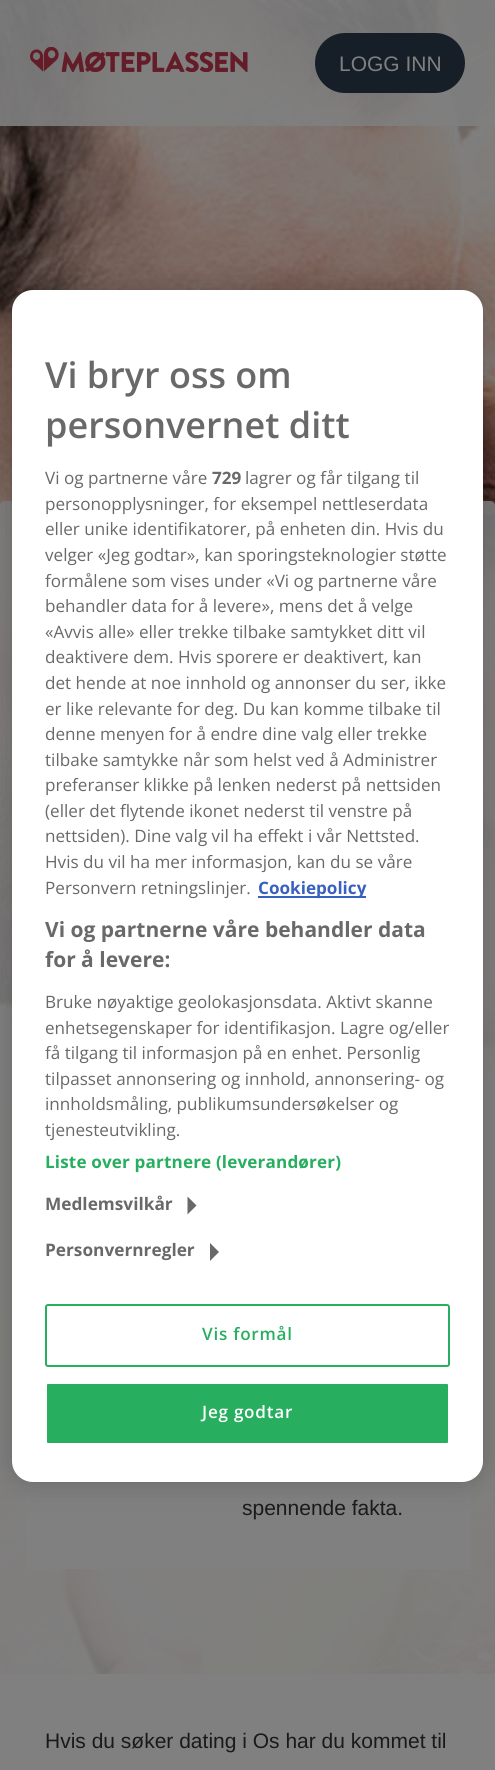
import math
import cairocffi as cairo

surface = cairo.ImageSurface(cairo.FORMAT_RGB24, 495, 1770)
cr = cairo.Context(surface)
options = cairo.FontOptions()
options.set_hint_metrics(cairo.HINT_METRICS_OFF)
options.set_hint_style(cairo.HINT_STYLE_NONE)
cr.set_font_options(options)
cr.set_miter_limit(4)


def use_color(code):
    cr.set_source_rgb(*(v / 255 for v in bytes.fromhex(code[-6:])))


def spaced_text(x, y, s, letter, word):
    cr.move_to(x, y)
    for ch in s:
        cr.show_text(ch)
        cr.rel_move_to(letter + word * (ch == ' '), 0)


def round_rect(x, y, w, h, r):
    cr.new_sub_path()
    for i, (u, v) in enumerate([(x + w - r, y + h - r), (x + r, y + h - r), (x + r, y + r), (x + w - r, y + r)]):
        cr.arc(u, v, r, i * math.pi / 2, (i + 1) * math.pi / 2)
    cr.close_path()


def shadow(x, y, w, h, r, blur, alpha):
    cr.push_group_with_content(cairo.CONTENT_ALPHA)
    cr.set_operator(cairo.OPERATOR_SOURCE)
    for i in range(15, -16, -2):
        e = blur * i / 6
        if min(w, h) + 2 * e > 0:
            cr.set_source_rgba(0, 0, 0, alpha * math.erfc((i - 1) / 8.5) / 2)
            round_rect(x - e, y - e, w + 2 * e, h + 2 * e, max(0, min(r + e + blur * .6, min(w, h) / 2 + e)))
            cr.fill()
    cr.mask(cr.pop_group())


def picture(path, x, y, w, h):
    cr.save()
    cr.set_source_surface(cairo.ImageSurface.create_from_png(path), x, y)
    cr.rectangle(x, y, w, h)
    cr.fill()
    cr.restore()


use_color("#ffffff")
cr.paint()
picture("img1.png", 0, 0, 495, 1674)
cr.set_source_rgba(0.502, 0.502, 0.502, 0.9)
cr.rectangle(0, 0, 495, 126)
cr.fill()
picture("img2.png", 30, 47, 218, 25)
use_color("#161f28")
round_rect(315, 33, 150, 60, 30)
cr.fill()
cr.select_font_face("Liberation Sans")
cr.set_font_size(21)
use_color("#808080")
cr.move_to(339, 71)
cr.show_text("LOGG INN")
cr.set_source_rgba(0.502, 0.502, 0.502, 0.9)
cr.new_path()
cr.move_to(5, 501)
cr.line_to(490, 501)
cr.curve_to(493, 501, 495, 503, 495, 506)
cr.line_to(495, 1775)
cr.line_to(0, 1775)
cr.line_to(0, 506)
cr.curve_to(0, 503, 2, 501, 5, 501)
cr.close_path()
cr.fill()
use_color("#808080")
cr.rectangle(26, 1480, 445, 89)
cr.fill()
use_color("#000000")
shadow(12, 290, 471, 1192, 21, 13.5, 0.2)
use_color("#ffffff")
round_rect(12, 290, 471, 1192, 21)
cr.fill()
cr.select_font_face("Open Sans SemiBold")
cr.set_font_size(36)
use_color("#696969")
cr.move_to(45, 388)
cr.show_text("Vi bryr oss om")
cr.move_to(45, 438)
cr.show_text("personvernet ditt")
cr.select_font_face("Open Sans")
cr.set_font_size(17.1)
cr.move_to(45, 484)
cr.show_text("Vi og partnerne våre")
cr.select_font_face("Open Sans", cairo.FONT_SLANT_NORMAL, cairo.FONT_WEIGHT_BOLD)
cr.move_to(212, 484)
cr.show_text("729")
cr.select_font_face("Open Sans")
cr.move_to(245, 484)
cr.show_text("lagrer og får tilgang til")
cr.move_to(45, 510)
cr.show_text("personopplysninger, for eksempel nettleserdata")
cr.move_to(45, 535)
cr.show_text("eller unike identifikatorer, på enheten din. Hvis du")
cr.move_to(45, 561)
cr.show_text("velger «Jeg godtar», kan sporingsteknologier støtte")
cr.move_to(45, 587)
cr.show_text("formålene som vises under «Vi og partnerne våre")
cr.move_to(45, 612)
cr.show_text("behandler data for å levere», mens det å velge")
cr.move_to(45, 638)
cr.show_text("«Avvis alle» eller trekke tilbake samtykket ditt vil")
cr.move_to(45, 663)
cr.show_text("deaktivere dem. Hvis sporere er deaktivert, kan")
cr.move_to(45, 689)
cr.show_text("det hende at noe innhold og annonser du ser, ikke")
cr.move_to(45, 715)
cr.show_text("er like relevante for deg. Du kan komme tilbake til")
cr.move_to(45, 740)
cr.show_text("denne menyen for å endre dine valg eller trekke")
cr.move_to(45, 766)
cr.show_text("tilbake samtykke når som helst ved å Administrer")
cr.move_to(45, 791)
cr.show_text("preferanser klikke på lenken nederst på nettsiden")
cr.move_to(45, 817)
cr.show_text("(eller det flytende ikonet nederst til venstre på")
cr.move_to(45, 842)
cr.show_text("nettsiden). Dine valg vil ha effekt i vår Nettsted.")
cr.move_to(45, 868)
cr.show_text("Hvis du vil ha mer informasjon, kan du se våre")
cr.move_to(45, 894)
cr.show_text("Personvern retningslinjer.")
use_color("#3860be")
cr.rectangle(258, 896, 108, 2)
cr.fill()
cr.select_font_face("Open Sans", cairo.FONT_SLANT_NORMAL, cairo.FONT_WEIGHT_BOLD)
cr.move_to(258, 894)
cr.show_text("Cookiepolicy")
cr.set_font_size(21)
use_color("#696969")
cr.move_to(45, 937)
cr.show_text("Vi og partnerne våre behandler data")
cr.move_to(45, 967)
cr.show_text("for å levere:")
cr.select_font_face("Open Sans")
cr.set_font_size(17.1)
cr.move_to(45, 1008)
cr.show_text("Bruke nøyaktige geolokasjonsdata. Aktivt skanne")
cr.move_to(45, 1034)
cr.show_text("enhetsegenskaper for identifikasjon. Lagre og/eller")
cr.move_to(45, 1059)
cr.show_text("få tilgang til informasjon på en enhet. Personlig")
cr.move_to(45, 1085)
cr.show_text("tilpasset annonsering og innhold, annonsering- og")
cr.move_to(45, 1110)
cr.show_text("innholdsmåling, publikumsundersøkelser og")
cr.move_to(45, 1136)
cr.show_text("tjenesteutvikling.")
cr.select_font_face("Open Sans", cairo.FONT_SLANT_NORMAL, cairo.FONT_WEIGHT_BOLD)
use_color("#27ae5f")
spaced_text(45, 1168, "Liste over partnere (leverandører)", 0.15, 0)
cr.set_font_size(17.25)
use_color("#696969")
cr.move_to(45, 1210)
cr.show_text("Medlemsvilkår")
cr.new_path()
cr.move_to(187.5, 1214.5)
cr.line_to(187.5, 1196.5)
cr.line_to(196.5, 1205.5)
cr.close_path()
cr.fill()
cr.move_to(45, 1256)
cr.show_text("Personvernregler")
cr.new_path()
cr.move_to(210, 1261)
cr.line_to(210, 1243)
cr.line_to(219, 1252)
cr.close_path()
cr.fill()
round_rect(46, 1305, 403, 61, 2)
use_color("#27ae5f")
cr.stroke()
cr.select_font_face("Open Sans SemiBold")
cr.set_font_size(17.1)
spaced_text(202, 1340, "Vis formål", 0.75, 0)
round_rect(46, 1383, 403, 61, 2)
cr.fill_preserve()
use_color("#ffffff")
cr.stroke()
spaced_text(202, 1418, "Jeg godtar", 0.75, 0)
cr.select_font_face("Liberation Sans")
cr.set_font_size(21)
use_color("#1a1a1a")
cr.move_to(242, 1515)
cr.show_text("spennende fakta.")
use_color("#808080")
cr.rectangle(0, 1674, 495, 96)
cr.fill()
use_color("#1a1a1a")
cr.move_to(45, 1748)
cr.show_text("Hvis du søker dating i Os har du kommet til")
surface.write_to_png("result.png")
